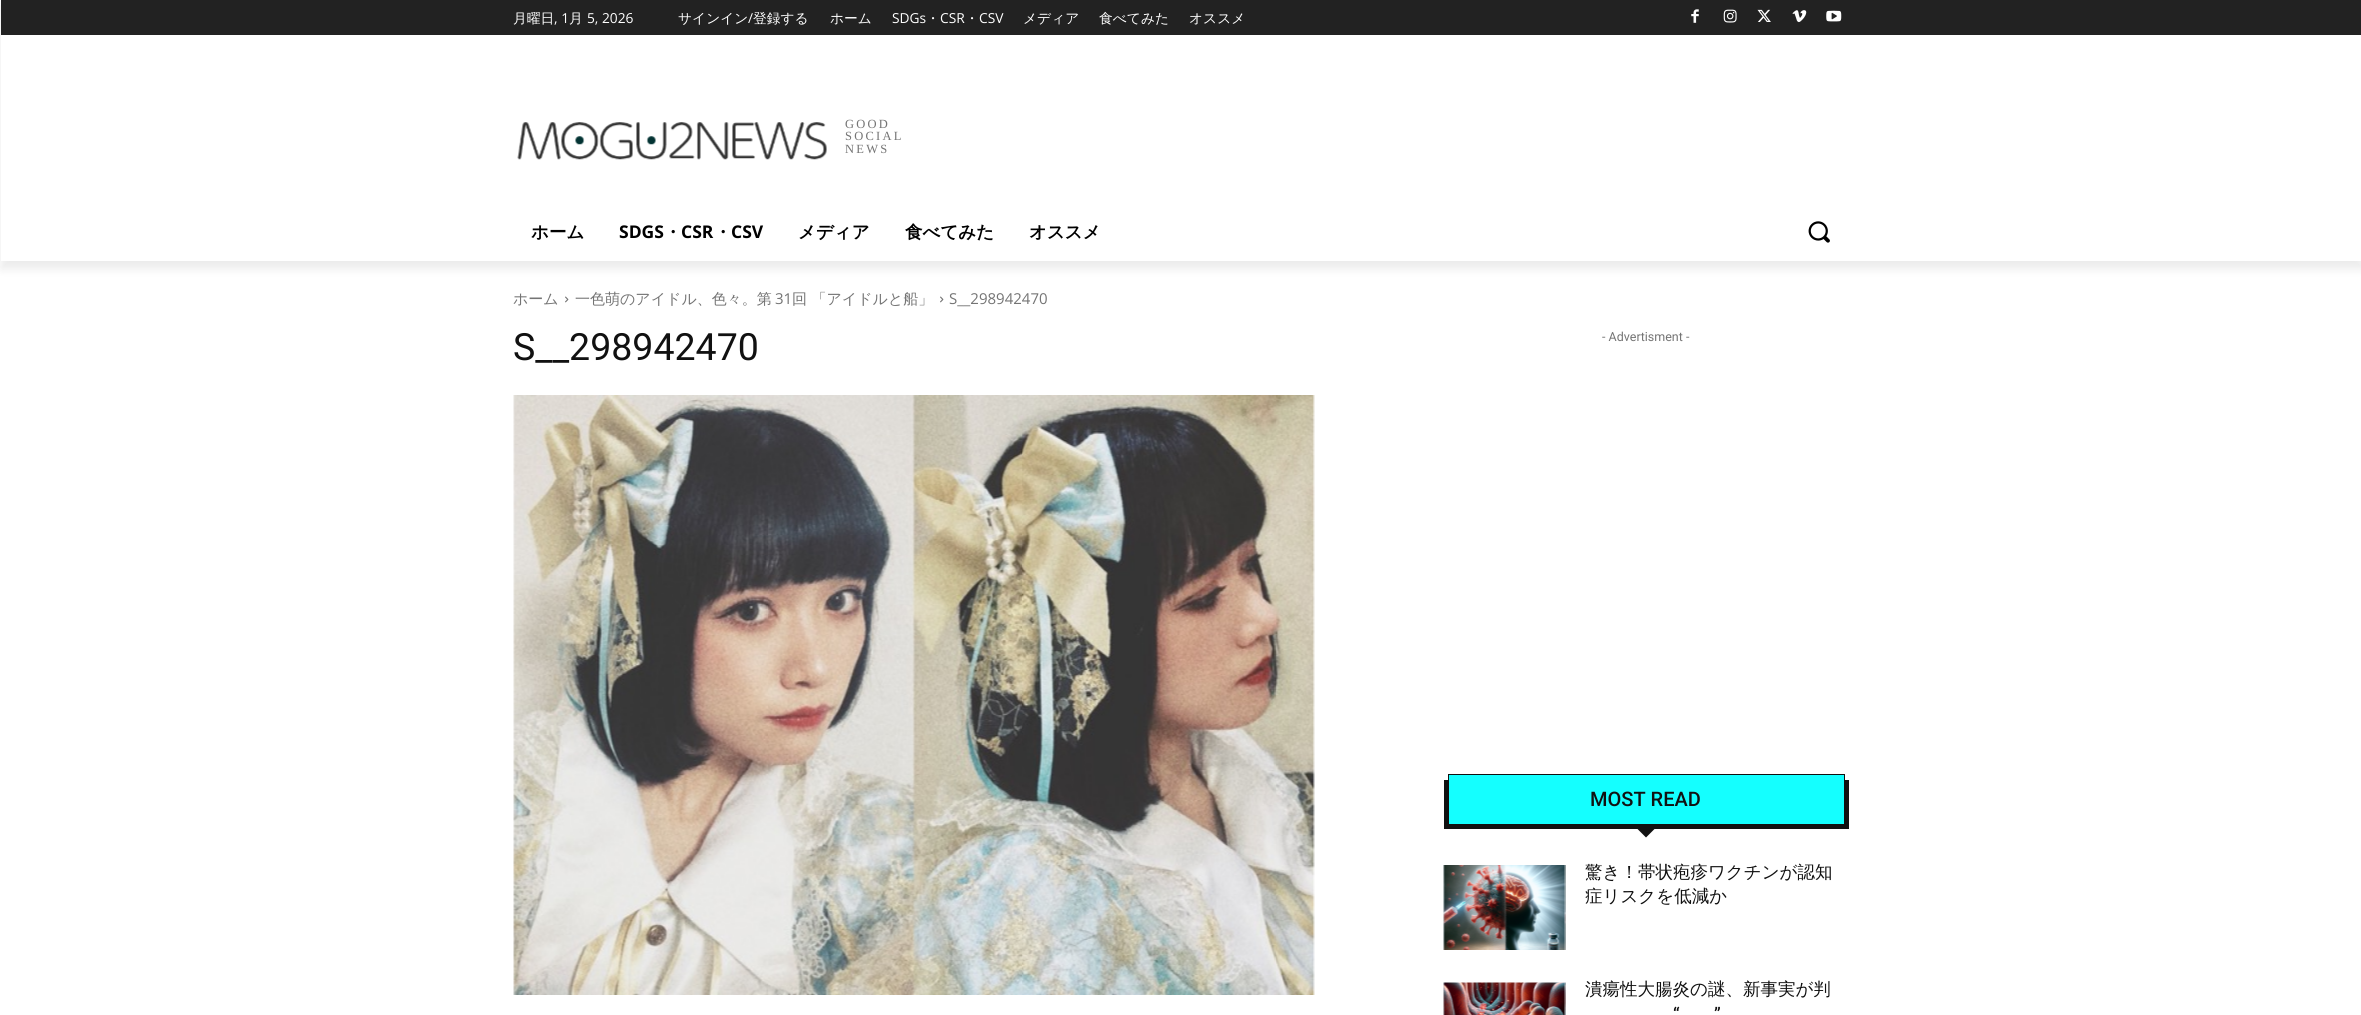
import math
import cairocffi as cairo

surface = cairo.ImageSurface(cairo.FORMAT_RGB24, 2361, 1015)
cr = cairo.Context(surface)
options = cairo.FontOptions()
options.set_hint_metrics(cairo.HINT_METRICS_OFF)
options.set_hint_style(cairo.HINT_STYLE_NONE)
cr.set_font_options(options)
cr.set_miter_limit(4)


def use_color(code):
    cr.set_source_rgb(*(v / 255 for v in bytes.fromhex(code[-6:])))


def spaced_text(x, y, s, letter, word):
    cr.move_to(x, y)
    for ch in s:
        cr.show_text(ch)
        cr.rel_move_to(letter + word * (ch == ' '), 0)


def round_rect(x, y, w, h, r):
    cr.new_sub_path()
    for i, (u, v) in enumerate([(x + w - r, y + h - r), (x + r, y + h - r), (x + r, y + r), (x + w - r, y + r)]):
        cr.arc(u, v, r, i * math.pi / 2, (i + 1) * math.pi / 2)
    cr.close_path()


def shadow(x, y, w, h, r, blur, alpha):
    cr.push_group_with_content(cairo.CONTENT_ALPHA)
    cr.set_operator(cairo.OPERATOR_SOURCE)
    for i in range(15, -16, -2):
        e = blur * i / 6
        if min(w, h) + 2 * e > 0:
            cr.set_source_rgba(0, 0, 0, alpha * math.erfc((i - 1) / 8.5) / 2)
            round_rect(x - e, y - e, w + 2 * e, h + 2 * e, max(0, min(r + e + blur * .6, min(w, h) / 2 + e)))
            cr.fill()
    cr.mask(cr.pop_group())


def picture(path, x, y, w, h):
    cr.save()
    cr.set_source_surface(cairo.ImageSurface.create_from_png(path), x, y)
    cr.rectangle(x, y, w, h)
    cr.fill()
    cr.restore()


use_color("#ffffff")
cr.paint()
use_color("#222222")
cr.rectangle(1, 0, 2360, 35)
cr.fill()
picture("img1.png", 1691, 9, 8, 14)
picture("img2.png", 1723, 9, 14, 14)
picture("img3.png", 1757, 9, 14, 13)
picture("img4.png", 1792, 10, 15, 13)
picture("img5.png", 1826, 10, 16, 12)
picture("img6.png", 517, 122, 310, 38)
cr.save()
cr.set_fill_rule(cairo.FILL_RULE_EVEN_ODD)
cr.new_path()
cr.move_to(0, 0)
cr.line_to(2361, 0)
cr.line_to(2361, 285)
cr.line_to(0, 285)
cr.close_path()
cr.move_to(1, 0)
cr.line_to(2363, 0)
cr.line_to(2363, 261)
cr.line_to(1, 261)
cr.close_path()
cr.clip()
use_color("#000000")
shadow(1, 8, 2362, 261, 0, 5, 0.08)
cr.restore()
cr.select_font_face("WenQuanYi Zen Hei Medium")
cr.set_font_size(13.75)
use_color("#ffffff")
cr.move_to(513, 23)
cr.show_text("月曜日")
cr.select_font_face("Open Sans")
cr.move_to(554, 23)
cr.show_text(", 1")
cr.select_font_face("WenQuanYi Zen Hei Medium")
cr.move_to(569, 23)
cr.show_text("月")
cr.select_font_face("Open Sans")
cr.move_to(587, 23)
cr.show_text("5, 2026")
cr.select_font_face("WenQuanYi Zen Hei Medium")
cr.move_to(678, 23)
cr.show_text("サインイン")
cr.select_font_face("Open Sans")
cr.move_to(748, 23)
cr.show_text("/")
cr.select_font_face("WenQuanYi Zen Hei Medium")
cr.move_to(753, 23)
cr.show_text("登録する")
cr.move_to(830, 23)
cr.show_text("ホーム")
cr.select_font_face("Open Sans")
cr.move_to(892, 23)
cr.show_text("SDGs")
cr.select_font_face("WenQuanYi Zen Hei Medium")
cr.move_to(926, 23)
cr.show_text("・")
cr.select_font_face("Open Sans")
cr.move_to(940, 23)
cr.show_text("CSR")
cr.select_font_face("WenQuanYi Zen Hei Medium")
cr.move_to(965, 23)
cr.show_text("・")
cr.select_font_face("Open Sans")
cr.move_to(979, 23)
cr.show_text("CSV")
cr.select_font_face("WenQuanYi Zen Hei Medium")
cr.move_to(1023, 23)
cr.show_text("メディア")
cr.move_to(1099, 23)
cr.show_text("食べてみた")
cr.move_to(1189, 23)
cr.show_text("オススメ")
cr.select_font_face("Liberation Serif")
cr.set_font_size(12.5)
use_color("#747474")
spaced_text(845, 128, "GOOD", 2.25, 0)
spaced_text(845, 140, "SOCIAL", 2.25, 0)
spaced_text(845, 153, "NEWS", 2.25, 0)
cr.select_font_face("WenQuanYi Zen Hei", cairo.FONT_SLANT_NORMAL, cairo.FONT_WEIGHT_BOLD)
cr.set_font_size(17.5)
use_color("#000000")
cr.move_to(531, 238)
cr.show_text("ホーム")
cr.select_font_face("Open Sans", cairo.FONT_SLANT_NORMAL, cairo.FONT_WEIGHT_BOLD)
cr.move_to(619, 238)
cr.show_text("SDGS")
cr.select_font_face("WenQuanYi Zen Hei", cairo.FONT_SLANT_NORMAL, cairo.FONT_WEIGHT_BOLD)
cr.move_to(664, 238)
cr.show_text("・")
cr.select_font_face("Open Sans", cairo.FONT_SLANT_NORMAL, cairo.FONT_WEIGHT_BOLD)
cr.move_to(681, 238)
cr.show_text("CSR")
cr.select_font_face("WenQuanYi Zen Hei", cairo.FONT_SLANT_NORMAL, cairo.FONT_WEIGHT_BOLD)
cr.move_to(714, 238)
cr.show_text("・")
cr.select_font_face("Open Sans", cairo.FONT_SLANT_NORMAL, cairo.FONT_WEIGHT_BOLD)
cr.move_to(731, 238)
cr.show_text("CSV")
cr.select_font_face("WenQuanYi Zen Hei", cairo.FONT_SLANT_NORMAL, cairo.FONT_WEIGHT_BOLD)
cr.move_to(798, 238)
cr.show_text("メディア")
cr.move_to(905, 238)
cr.show_text("食べてみた")
cr.move_to(1029, 238)
cr.show_text("オススメ")
picture("img7.png", 1808, 221, 22, 22)
cr.select_font_face("WenQuanYi Zen Hei Medium")
cr.set_font_size(15)
use_color("#747474")
cr.move_to(513, 304)
cr.show_text("ホーム")
picture("img8.png", 565, 296, 4, 7)
cr.move_to(575, 304)
cr.show_text("一色萌のアイドル、色々。第")
cr.select_font_face("Open Sans")
cr.move_to(775, 304)
cr.show_text("31")
cr.select_font_face("WenQuanYi Zen Hei Medium")
cr.move_to(792, 304)
cr.show_text("回 「アイドルと船」")
picture("img8.png", 940, 296, 4, 7)
cr.select_font_face("Open Sans")
cr.move_to(949, 304)
cr.show_text("S__298942470")
cr.select_font_face("Roboto")
cr.set_font_size(37.5)
use_color("#111111")
cr.move_to(513, 360)
cr.show_text("S__298942470")
picture("img9.png", 513, 395, 802, 600)
cr.set_font_size(12.5)
use_color("#747474")
cr.move_to(1602, 341)
cr.show_text("- Advertisment -")
use_color("#111111")
cr.rectangle(1444, 780, 405, 49)
cr.fill()
use_color("#14ffff")
cr.rectangle(1448.5, 774.5, 396, 50)
cr.fill_preserve()
use_color("#111111")
cr.set_line_width(1)
cr.stroke()
cr.select_font_face("Roboto Medium")
cr.set_font_size(20)
cr.move_to(1590, 806)
cr.show_text("MOST READ")
cr.new_path()
cr.move_to(1636, 827.5)
cr.line_to(1656, 827.5)
cr.line_to(1646, 837.5)
cr.close_path()
cr.fill()
picture("img10.png", 1443, 865, 123, 85)
cr.select_font_face("WenQuanYi Zen Hei Medium")
cr.set_font_size(17.5)
cr.move_to(1585, 878)
cr.show_text("驚き！帯状疱疹ワクチンが認知")
cr.move_to(1585, 902)
cr.show_text("症リスクを低減か")
picture("img11.png", 1443, 982, 123, 33)
cr.move_to(1585, 995)
cr.show_text("潰瘍性大腸炎の謎、新事実が判")
cr.select_font_face("Roboto Medium")
cr.move_to(1673, 1020)
cr.show_text("“")
cr.move_to(1714, 1020)
cr.show_text("”")
surface.write_to_png("result.png")
